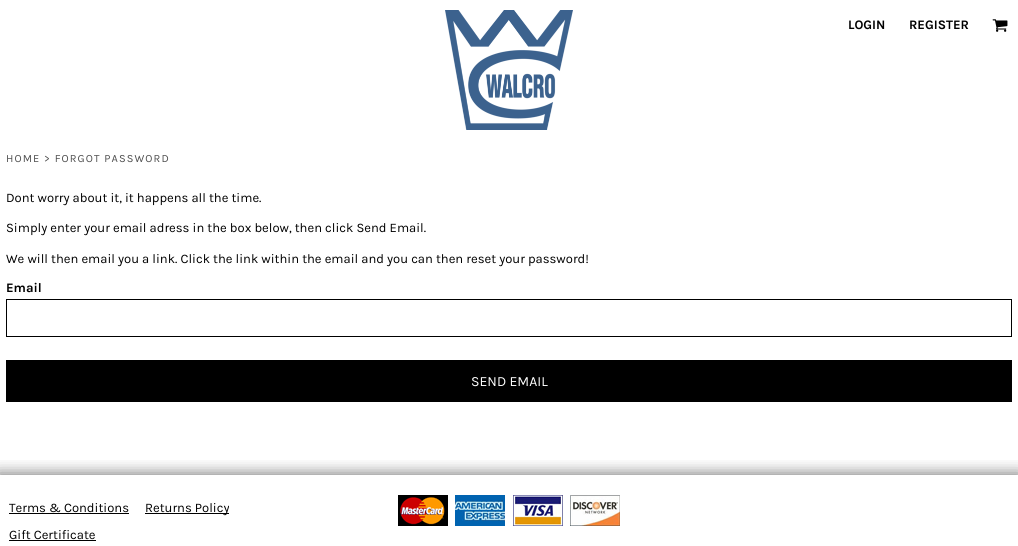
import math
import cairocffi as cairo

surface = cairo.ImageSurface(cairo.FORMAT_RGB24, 1018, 546)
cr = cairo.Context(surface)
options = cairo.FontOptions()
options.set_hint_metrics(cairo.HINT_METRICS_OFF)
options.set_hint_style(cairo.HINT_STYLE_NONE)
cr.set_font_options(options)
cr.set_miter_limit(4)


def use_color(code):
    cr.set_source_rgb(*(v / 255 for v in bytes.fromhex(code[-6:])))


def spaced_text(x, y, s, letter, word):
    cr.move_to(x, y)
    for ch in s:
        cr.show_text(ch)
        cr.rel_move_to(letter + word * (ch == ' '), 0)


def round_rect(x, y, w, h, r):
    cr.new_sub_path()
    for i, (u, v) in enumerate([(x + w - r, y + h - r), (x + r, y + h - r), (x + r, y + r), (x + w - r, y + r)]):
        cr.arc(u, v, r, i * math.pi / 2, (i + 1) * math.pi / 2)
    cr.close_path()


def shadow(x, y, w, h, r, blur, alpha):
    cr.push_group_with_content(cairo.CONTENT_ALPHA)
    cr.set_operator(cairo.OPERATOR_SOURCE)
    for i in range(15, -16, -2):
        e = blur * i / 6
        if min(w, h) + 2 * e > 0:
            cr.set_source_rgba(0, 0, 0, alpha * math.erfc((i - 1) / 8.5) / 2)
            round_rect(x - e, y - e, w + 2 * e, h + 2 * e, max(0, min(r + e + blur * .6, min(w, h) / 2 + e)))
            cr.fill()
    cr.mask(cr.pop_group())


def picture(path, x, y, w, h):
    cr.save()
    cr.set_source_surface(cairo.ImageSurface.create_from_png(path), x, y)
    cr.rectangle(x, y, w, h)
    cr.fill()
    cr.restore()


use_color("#ffffff")
cr.paint()
picture("img1.png", 445, 10, 128, 120)
cr.select_font_face("Karla", cairo.FONT_SLANT_NORMAL, cairo.FONT_WEIGHT_BOLD)
cr.set_font_size(13)
use_color("#000000")
cr.move_to(848, 29)
cr.show_text("LOGIN")
cr.move_to(909, 29)
cr.show_text("REGISTER")
picture("img2.png", 992, 19, 16, 13)
cr.select_font_face("Karla")
cr.set_font_size(11)
use_color("#4d4d4d")
spaced_text(6, 162, "HOME > FORGOT PASSWORD", 1.1, 0)
cr.set_font_size(13)
use_color("#000000")
cr.move_to(6, 202)
cr.show_text("Dont worry about it, it happens all the time.")
cr.move_to(6, 232)
cr.show_text("Simply enter your email adress in the box below, then click Send Email.")
cr.move_to(6, 263)
cr.show_text("We will then email you a link. Click the link within the email and you can then reset your password!")
cr.select_font_face("Karla", cairo.FONT_SLANT_NORMAL, cairo.FONT_WEIGHT_BOLD)
cr.move_to(6, 292)
cr.show_text("Email")
cr.rectangle(6.5, 299.5, 1005, 37)
cr.set_line_width(1)
cr.stroke()
cr.rectangle(6, 360, 1006, 42)
cr.fill()
cr.select_font_face("Karla")
cr.set_font_size(14)
use_color("#ffffff")
cr.move_to(471, 386)
cr.show_text("SEND EMAIL")
cr.save()
cr.rectangle(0, 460, 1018, 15)
cr.clip()
use_color("#000000")
shadow(-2, 473, 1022, 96, 0, 7.5, 0.5)
cr.restore()
cr.set_font_size(13)
use_color("#000000")
cr.move_to(9, 512)
cr.show_text("Terms & Conditions")
cr.rectangle(9, 513, 120, 1)
cr.fill()
cr.rectangle(145, 513, 84, 1)
cr.fill()
cr.move_to(145, 512)
cr.show_text("Returns Policy")
cr.move_to(9, 539)
cr.show_text("Gift Certificate")
cr.rectangle(9, 540, 87, 1)
cr.fill()
picture("img3.png", 398, 495, 50, 31)
picture("img4.png", 455, 495, 50, 31)
picture("img5.png", 513, 495, 50, 31)
picture("img6.png", 570, 495, 50, 31)
surface.write_to_png("result.png")
